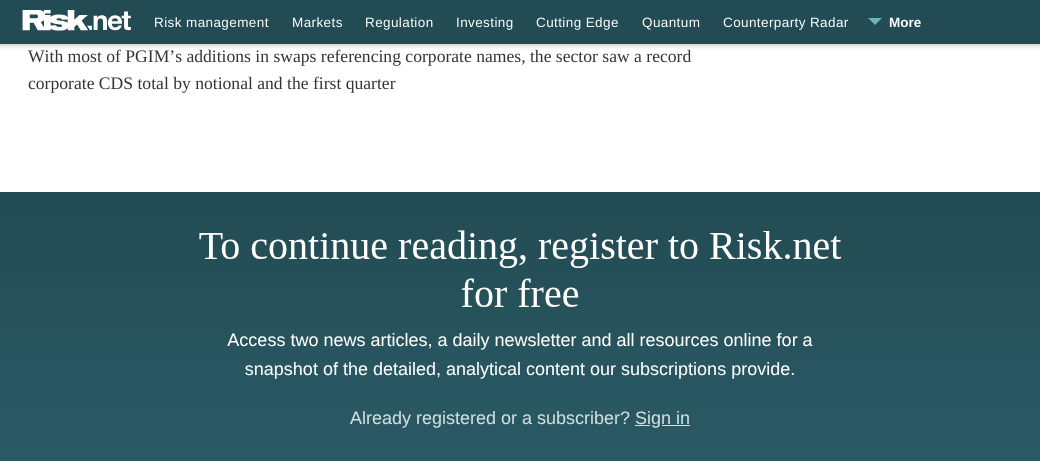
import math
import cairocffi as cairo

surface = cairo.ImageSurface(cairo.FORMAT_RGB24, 1040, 461)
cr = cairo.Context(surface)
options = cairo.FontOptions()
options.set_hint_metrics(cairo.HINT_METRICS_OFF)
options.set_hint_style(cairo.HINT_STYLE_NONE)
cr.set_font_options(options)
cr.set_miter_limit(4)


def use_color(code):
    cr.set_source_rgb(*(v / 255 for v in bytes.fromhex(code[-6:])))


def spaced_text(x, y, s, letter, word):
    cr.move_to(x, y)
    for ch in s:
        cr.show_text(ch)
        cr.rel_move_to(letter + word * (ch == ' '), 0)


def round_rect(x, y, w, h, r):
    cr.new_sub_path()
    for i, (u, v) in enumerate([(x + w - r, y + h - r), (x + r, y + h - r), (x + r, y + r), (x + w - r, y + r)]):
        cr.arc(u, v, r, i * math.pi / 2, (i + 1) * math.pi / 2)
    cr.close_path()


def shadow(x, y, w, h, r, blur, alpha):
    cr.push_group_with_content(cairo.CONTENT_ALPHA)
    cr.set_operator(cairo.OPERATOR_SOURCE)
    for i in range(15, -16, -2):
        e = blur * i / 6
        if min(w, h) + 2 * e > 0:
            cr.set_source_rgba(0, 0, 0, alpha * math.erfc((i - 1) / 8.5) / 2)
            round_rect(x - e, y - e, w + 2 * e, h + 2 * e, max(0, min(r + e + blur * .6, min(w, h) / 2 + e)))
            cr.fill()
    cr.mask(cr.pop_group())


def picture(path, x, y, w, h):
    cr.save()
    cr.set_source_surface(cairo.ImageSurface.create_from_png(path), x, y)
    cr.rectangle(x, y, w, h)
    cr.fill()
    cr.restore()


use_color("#ffffff")
cr.paint()
use_color("#000000")
shadow(0, 2, 1040, 44, 0, 2, 0.2)
use_color("#234b53")
cr.rectangle(0, 0, 1040, 44)
cr.fill()
picture("img1.png", 22, 10, 109, 21)
cr.select_font_face("Arimo")
cr.set_font_size(13.5)
use_color("#ffffff")
spaced_text(154, 27, "Risk management", 0.4, 0)
spaced_text(292, 27, "Markets", 0.4, 0)
spaced_text(365, 27, "Regulation", 0.4, 0)
spaced_text(456, 27, "Investing", 0.4, 0)
spaced_text(536, 27, "Cutting Edge", 0.4, 0)
spaced_text(642, 27, "Quantum", 0.4, 0)
spaced_text(723, 27, "Counterparty Radar", 0.4, 0)
cr.save()
cr.rectangle(868, 18, 14, 8)
cr.clip()
use_color("#6cb1bc")
cr.new_path()
cr.move_to(882, 60)
cr.line_to(868, 60)
cr.line_to(875, 53)
cr.close_path()
cr.move_to(868, 18)
cr.line_to(882, 18)
cr.line_to(875, 25)
cr.close_path()
cr.fill()
cr.restore()
cr.select_font_face("Arimo", cairo.FONT_SLANT_NORMAL, cairo.FONT_WEIGHT_BOLD)
cr.move_to(889, 27)
cr.show_text("More")
cr.select_font_face("Liberation Serif")
cr.set_font_size(17.6)
use_color("#333333")
cr.move_to(28, 62)
cr.show_text("With most of PGIM’s additions in swaps referencing corporate names, the sector saw a record")
cr.move_to(28, 89)
cr.show_text("corporate CDS total by notional and the first quarter")
gradient = cairo.LinearGradient(520, 192, 520, 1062)
gradient.add_color_stop_rgba(0, 0.137, 0.294, 0.325, 1)
gradient.add_color_stop_rgba(1, 0.231, 0.486, 0.557, 1)
cr.set_source(gradient)
cr.rectangle(0, 192, 1040, 269)
cr.fill()
picture("img2.png", 199, 230, 643, 198)
surface.write_to_png("result.png")
